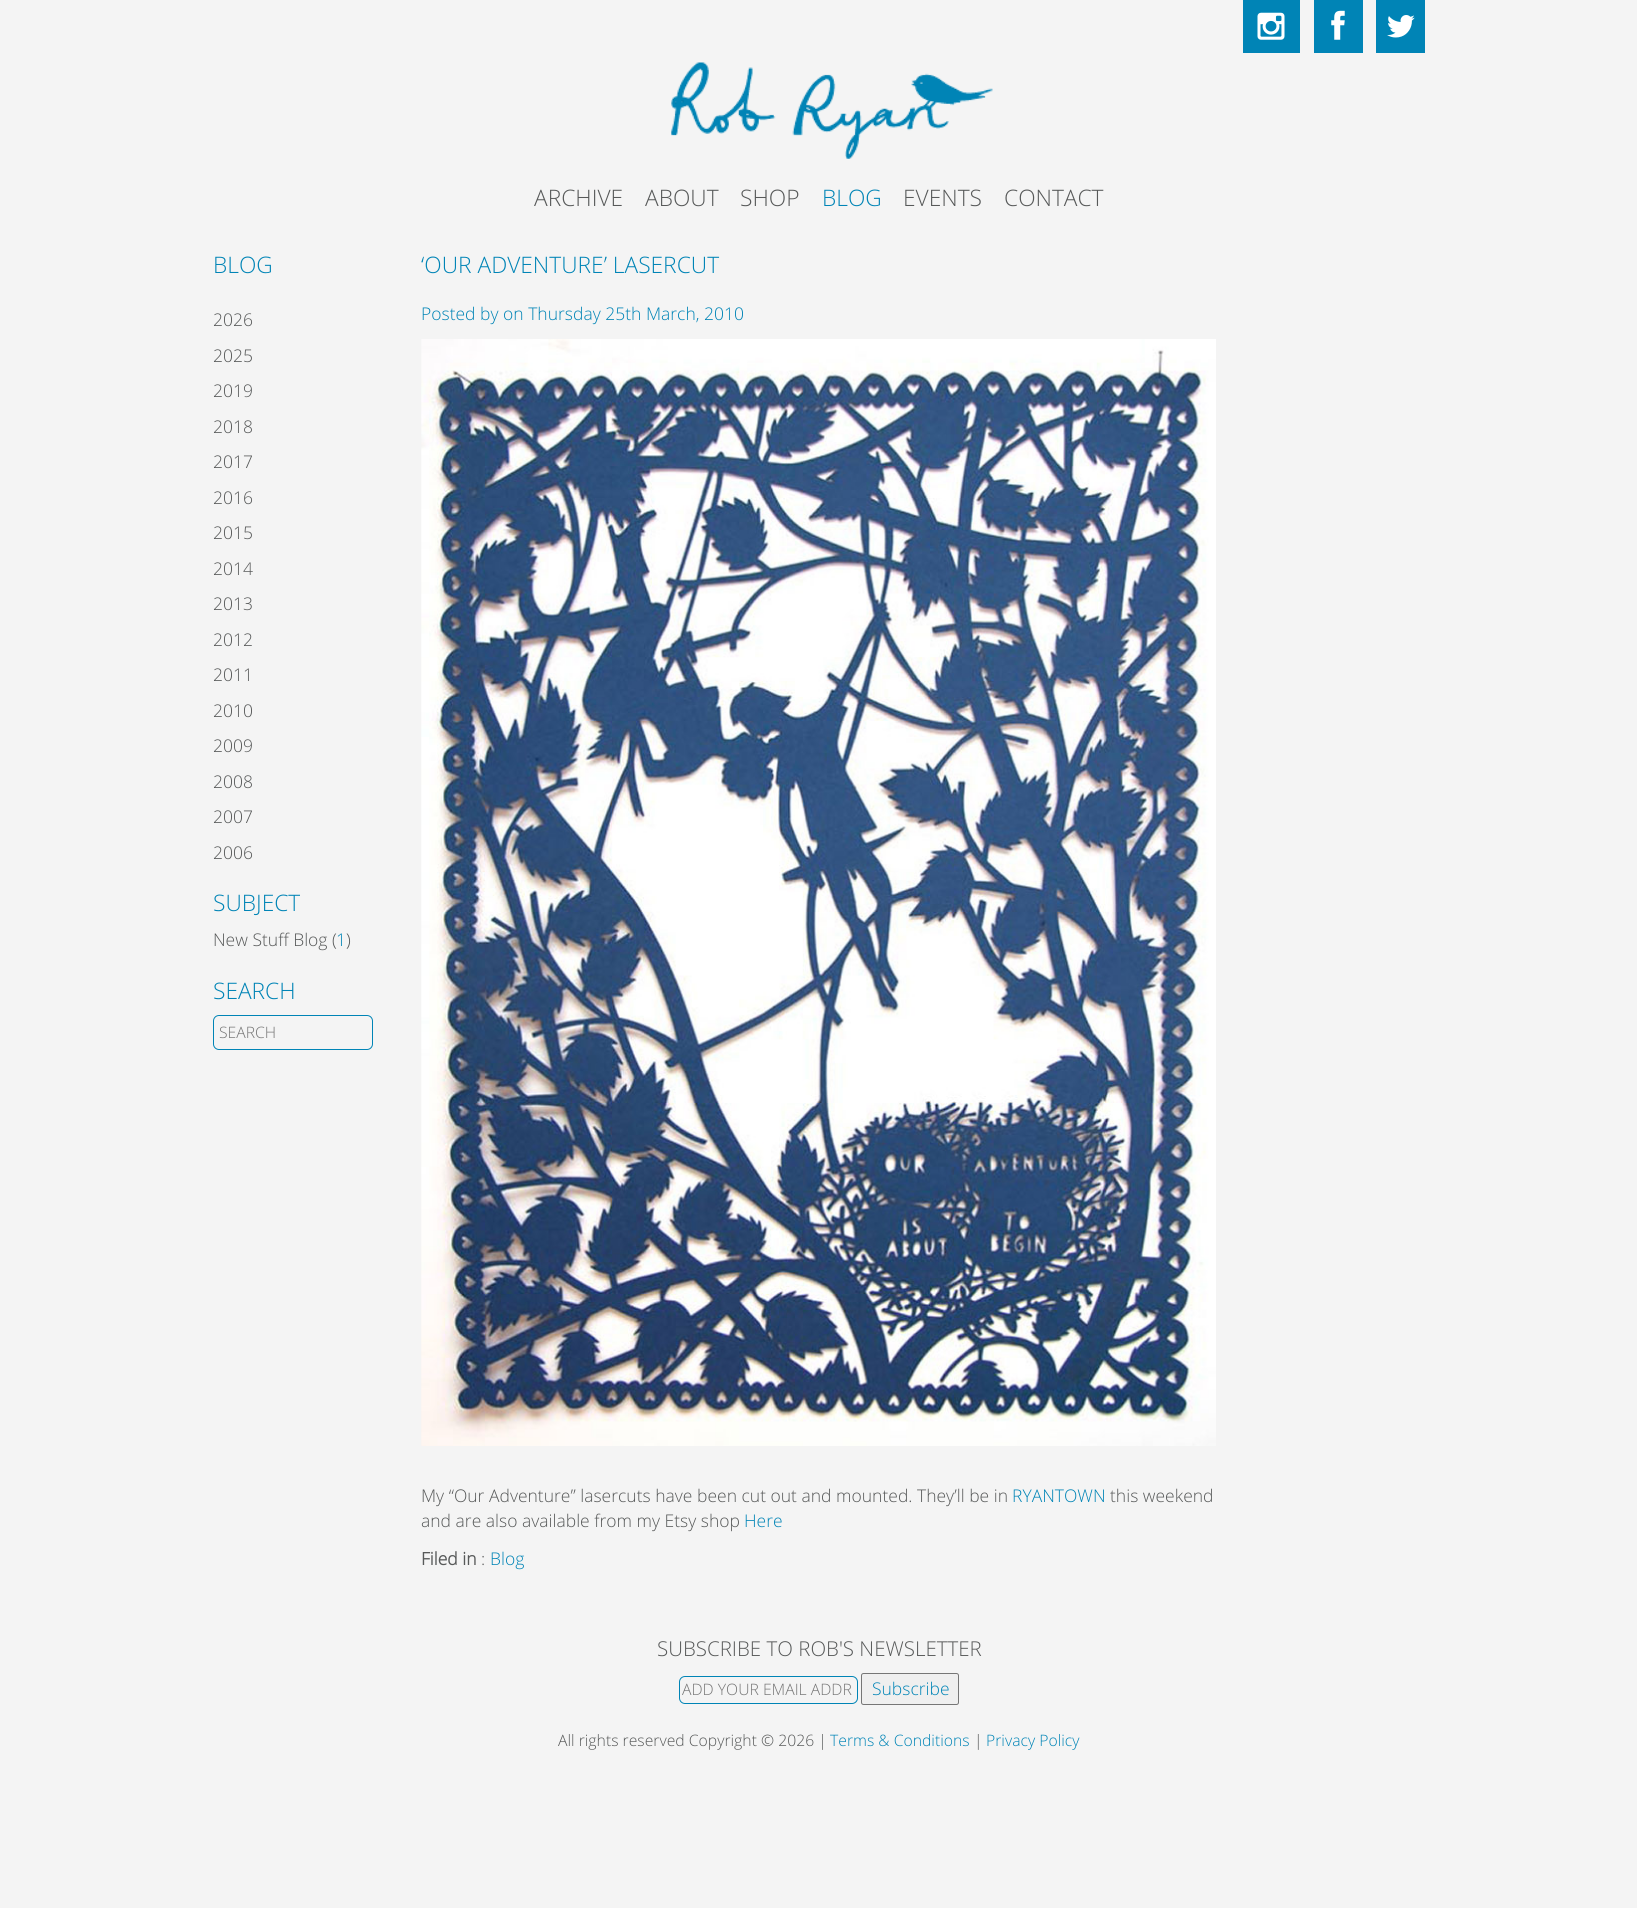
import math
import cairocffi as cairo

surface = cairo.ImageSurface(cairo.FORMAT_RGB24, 1637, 1908)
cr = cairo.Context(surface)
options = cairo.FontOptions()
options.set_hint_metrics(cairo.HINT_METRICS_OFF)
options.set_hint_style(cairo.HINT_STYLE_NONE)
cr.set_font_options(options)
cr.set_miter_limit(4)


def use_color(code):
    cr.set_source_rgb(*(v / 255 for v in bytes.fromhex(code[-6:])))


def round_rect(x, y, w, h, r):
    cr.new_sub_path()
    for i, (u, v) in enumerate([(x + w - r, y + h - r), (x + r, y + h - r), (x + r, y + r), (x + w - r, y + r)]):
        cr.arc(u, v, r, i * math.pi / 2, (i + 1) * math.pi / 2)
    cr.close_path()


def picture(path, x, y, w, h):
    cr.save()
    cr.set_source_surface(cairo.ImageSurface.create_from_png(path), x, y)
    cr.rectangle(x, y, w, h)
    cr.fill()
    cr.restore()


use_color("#f4f4f4")
cr.paint()
use_color("#0084b6")
cr.rectangle(1243, 0, 57, 53)
cr.fill()
picture("img1.png", 1257, 12, 28, 28)
cr.rectangle(1314, 0, 49, 53)
cr.fill()
picture("img2.png", 1331, 10, 14, 30)
cr.rectangle(1376, 0, 49, 53)
cr.fill()
picture("img3.png", 1387, 15, 28, 23)
picture("img4.png", 671, 62, 322, 97)
cr.select_font_face("Open Sans Light")
cr.set_font_size(22.75)
use_color("#575959")
cr.move_to(534, 206)
cr.show_text("ARCHIVE")
cr.move_to(645, 206)
cr.show_text("ABOUT")
cr.move_to(740, 206)
cr.show_text("SHOP")
use_color("#0084b6")
cr.move_to(822, 206)
cr.show_text("BLOG")
use_color("#575959")
cr.move_to(903, 206)
cr.show_text("EVENTS")
cr.move_to(1004, 206)
cr.show_text("CONTACT")
use_color("#0084b6")
cr.move_to(213, 273)
cr.show_text("BLOG")
cr.set_font_size(17.5)
use_color("#575959")
cr.move_to(213, 326)
cr.show_text("2026")
cr.move_to(213, 362)
cr.show_text("2025")
cr.move_to(213, 397)
cr.show_text("2019")
cr.move_to(213, 433)
cr.show_text("2018")
cr.move_to(213, 468)
cr.show_text("2017")
cr.move_to(213, 504)
cr.show_text("2016")
cr.move_to(213, 539)
cr.show_text("2015")
cr.move_to(213, 575)
cr.show_text("2014")
cr.move_to(213, 610)
cr.show_text("2013")
cr.move_to(213, 646)
cr.show_text("2012")
cr.move_to(213, 681)
cr.show_text("2011")
cr.move_to(213, 717)
cr.show_text("2010")
cr.move_to(213, 752)
cr.show_text("2009")
cr.move_to(213, 788)
cr.show_text("2008")
cr.move_to(213, 823)
cr.show_text("2007")
cr.move_to(213, 859)
cr.show_text("2006")
cr.set_font_size(22.75)
use_color("#0084b6")
cr.move_to(213, 911)
cr.show_text("SUBJECT")
cr.set_font_size(17.5)
use_color("#575959")
cr.move_to(213, 946)
cr.show_text("New Stuff Blog (")
use_color("#0084b6")
cr.move_to(336, 946)
cr.show_text("1")
use_color("#575959")
cr.move_to(346, 946)
cr.show_text(")")
cr.set_font_size(22.75)
use_color("#0084b6")
cr.move_to(213, 999)
cr.show_text("SEARCH")
round_rect(213.5, 1015.5, 159, 34, 5.5)
cr.set_line_width(1)
cr.stroke()
cr.set_font_size(15.75)
use_color("#757575")
cr.move_to(219, 1038)
cr.show_text("SEARCH")
cr.set_font_size(22.75)
use_color("#0084b6")
cr.move_to(421, 273)
cr.show_text("‘OUR ADVENTURE’ LASERCUT")
cr.set_font_size(17.5)
cr.move_to(421, 320)
cr.show_text("Posted by on Thursday 25th March, 2010")
picture("img5.png", 421, 339, 795, 1107)
use_color("#575959")
cr.move_to(421, 1502)
cr.show_text("My “Our Adventure” lasercuts have been cut out and mounted. They’ll be in")
use_color("#0084b6")
cr.move_to(1012, 1502)
cr.show_text("RYANTOWN")
use_color("#575959")
cr.move_to(1110, 1502)
cr.show_text("this weekend")
cr.move_to(421, 1527)
cr.show_text("and are also available from my Etsy shop")
use_color("#0084b6")
cr.move_to(744, 1527)
cr.show_text("Here")
cr.select_font_face("Open Sans", cairo.FONT_SLANT_NORMAL, cairo.FONT_WEIGHT_BOLD)
use_color("#575959")
cr.move_to(421, 1565)
cr.show_text("Filed in")
cr.select_font_face("Open Sans Light")
cr.move_to(481, 1565)
cr.show_text(":")
use_color("#0084b6")
cr.move_to(490, 1565)
cr.show_text("Blog")
cr.set_font_size(20.5)
use_color("#575959")
cr.move_to(657, 1656)
cr.show_text("SUBSCRIBE TO ROB'S NEWSLETTER")
round_rect(679.5, 1676.5, 178, 27, 5.5)
use_color("#0084b6")
cr.stroke()
cr.set_font_size(15.75)
use_color("#757575")
cr.move_to(682, 1695)
cr.show_text("ADD YOUR EMAIL ADDR")
use_color("#efefef")
round_rect(861.5, 1673.5, 97, 31, 2)
cr.fill_preserve()
use_color("#767676")
cr.stroke()
cr.set_font_size(17.5)
use_color("#0084b6")
cr.move_to(872, 1695)
cr.show_text("Subscribe")
cr.set_font_size(15.75)
use_color("#575959")
cr.move_to(558, 1746)
cr.show_text("All rights reserved Copyright © 2026 |")
use_color("#0084b6")
cr.move_to(830, 1746)
cr.show_text("Terms & Conditions")
use_color("#575959")
cr.move_to(974, 1746)
cr.show_text("|")
use_color("#0084b6")
cr.move_to(986, 1746)
cr.show_text("Privacy Policy")
surface.write_to_png("result.png")
